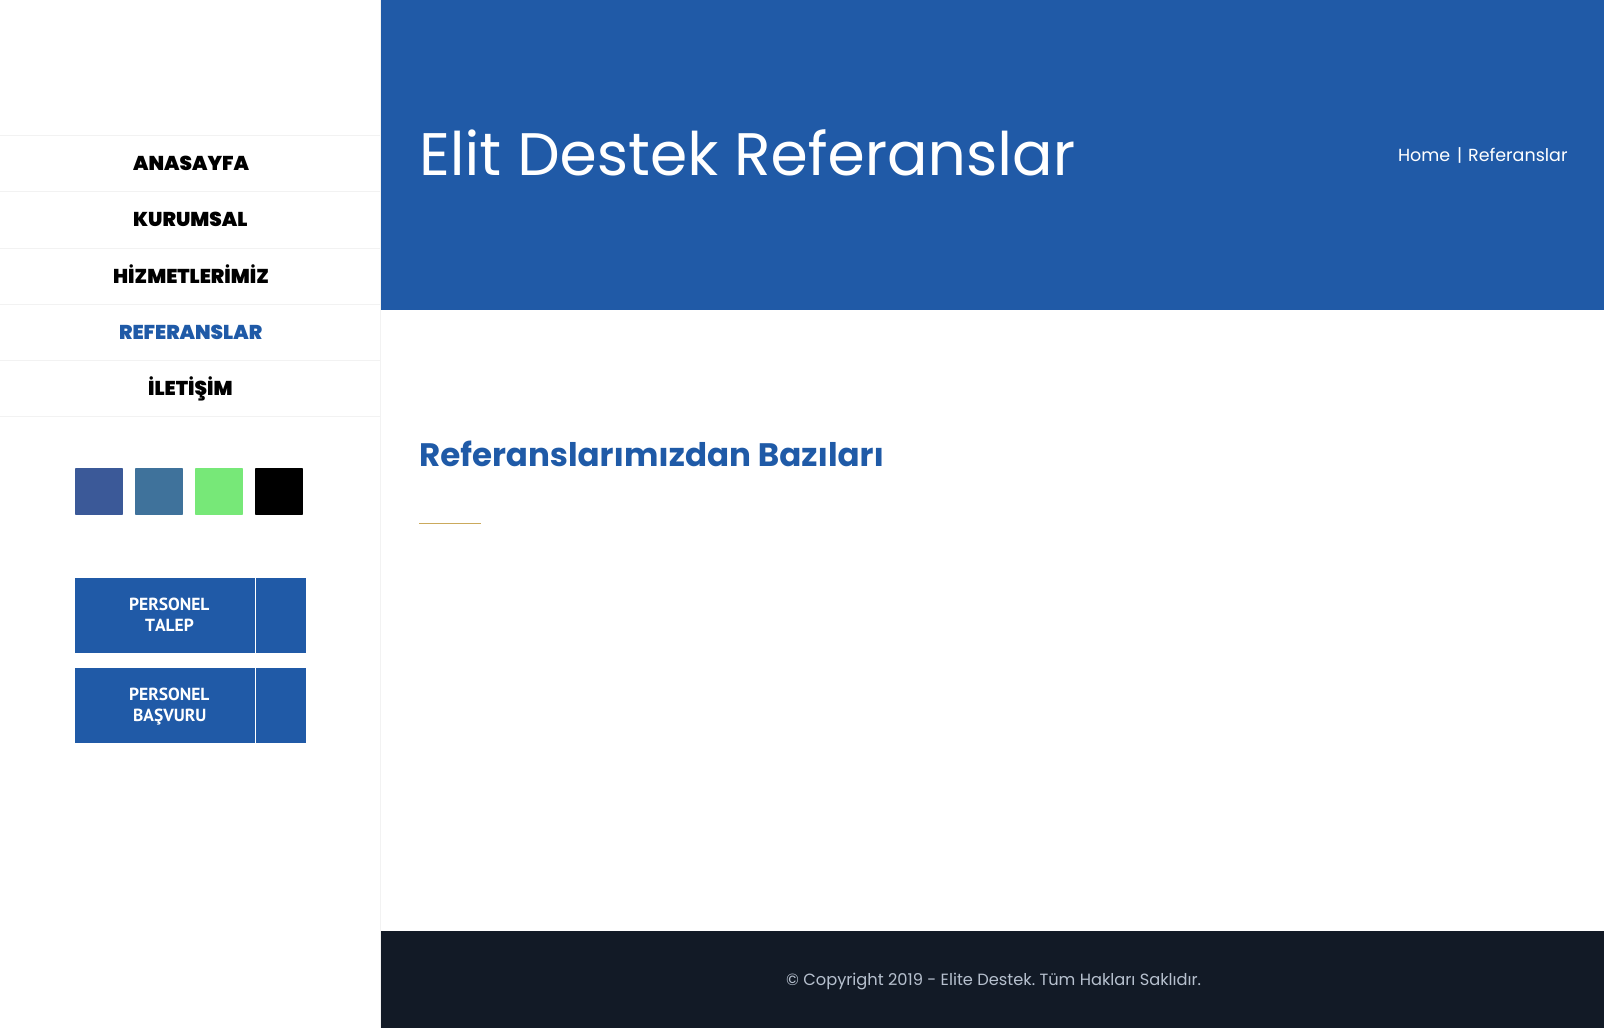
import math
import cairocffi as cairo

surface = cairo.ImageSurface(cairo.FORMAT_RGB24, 1604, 1028)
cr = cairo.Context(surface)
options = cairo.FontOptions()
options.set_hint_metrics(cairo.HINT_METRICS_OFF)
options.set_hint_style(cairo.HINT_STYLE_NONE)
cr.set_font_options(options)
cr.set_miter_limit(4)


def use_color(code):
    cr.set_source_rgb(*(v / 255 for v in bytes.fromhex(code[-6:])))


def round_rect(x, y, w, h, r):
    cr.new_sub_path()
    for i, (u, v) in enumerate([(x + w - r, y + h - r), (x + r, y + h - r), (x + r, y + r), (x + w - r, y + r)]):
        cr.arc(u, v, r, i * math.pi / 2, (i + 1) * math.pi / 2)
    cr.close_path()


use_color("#ffffff")
cr.paint()
use_color("#f2f2f2")
cr.rectangle(380, 0, 1, 1028)
cr.fill()
cr.rectangle(0, 135, 381, 1)
cr.fill()
cr.rectangle(0, 191, 381, 1)
cr.fill()
cr.select_font_face("Poppins Black")
cr.set_font_size(20)
use_color("#000000")
cr.move_to(133, 170)
cr.show_text("ANASAYFA")
use_color("#f2f2f2")
cr.rectangle(0, 248, 381, 1)
cr.fill()
use_color("#000000")
cr.move_to(133, 226)
cr.show_text("KURUMSAL")
use_color("#f2f2f2")
cr.rectangle(0, 304, 381, 1)
cr.fill()
use_color("#000000")
cr.move_to(113, 283)
cr.show_text("HİZMETLERİMİZ")
use_color("#f2f2f2")
cr.rectangle(0, 360, 381, 1)
cr.fill()
use_color("#1f5aa7")
cr.move_to(119, 339)
cr.show_text("REFERANSLAR")
use_color("#f2f2f2")
cr.rectangle(0, 416, 381, 1)
cr.fill()
use_color("#000000")
cr.move_to(148, 395)
cr.show_text("İLETİŞİM")
use_color("#3b5998")
round_rect(75.5, 468.5, 47, 46, 0.5)
cr.fill_preserve()
cr.set_line_width(1)
cr.stroke()
use_color("#3f729b")
round_rect(135.5, 468.5, 47, 46, 0.5)
cr.fill_preserve()
cr.stroke()
use_color("#77e878")
round_rect(195.5, 468.5, 47, 46, 0.5)
cr.fill_preserve()
cr.stroke()
use_color("#000000")
round_rect(255.5, 468.5, 47, 46, 0.5)
cr.fill_preserve()
cr.stroke()
use_color("#205aa7")
cr.rectangle(75, 578, 231, 75)
cr.fill()
cr.select_font_face("PT Sans", cairo.FONT_SLANT_NORMAL, cairo.FONT_WEIGHT_BOLD)
cr.set_font_size(17.5)
use_color("#ffffff")
cr.move_to(129, 610)
cr.show_text("PERSONEL")
cr.move_to(145, 631)
cr.show_text("TALEP")
cr.rectangle(255, 578, 1, 75)
cr.fill()
use_color("#205aa7")
cr.rectangle(75, 668, 231, 75)
cr.fill()
use_color("#ffffff")
cr.move_to(129, 700)
cr.show_text("PERSONEL")
cr.move_to(133, 721)
cr.show_text("BAŞVURU")
cr.rectangle(255, 668, 1, 75)
cr.fill()
use_color("#205aa7")
cr.rectangle(381, 0, 1223, 310)
cr.fill()
cr.select_font_face("Poppins")
cr.set_font_size(60)
use_color("#ffffff")
cr.move_to(419, 175)
cr.show_text("Elit Destek Referanslar")
cr.set_font_size(17.5)
cr.move_to(1398, 161)
cr.show_text("Home")
cr.move_to(1457, 161)
cr.show_text("|")
cr.move_to(1468, 161)
cr.show_text("Referanslar")
cr.select_font_face("Poppins", cairo.FONT_SLANT_NORMAL, cairo.FONT_WEIGHT_BOLD)
cr.set_font_size(32.5)
use_color("#1f5aa7")
cr.move_to(419, 466)
cr.show_text("Referanslarımızdan Bazıları")
use_color("#cbaa5c")
cr.rectangle(419, 523, 62, 1)
cr.fill()
use_color("#121a26")
cr.rectangle(381, 931, 1223, 97)
cr.fill()
cr.select_font_face("Poppins")
cr.set_font_size(16.25)
use_color("#b6c0ce")
cr.move_to(786, 985)
cr.show_text("© Copyright 2019 - Elite Destek. Tüm Hakları Saklıdır.")
surface.write_to_png("result.png")
